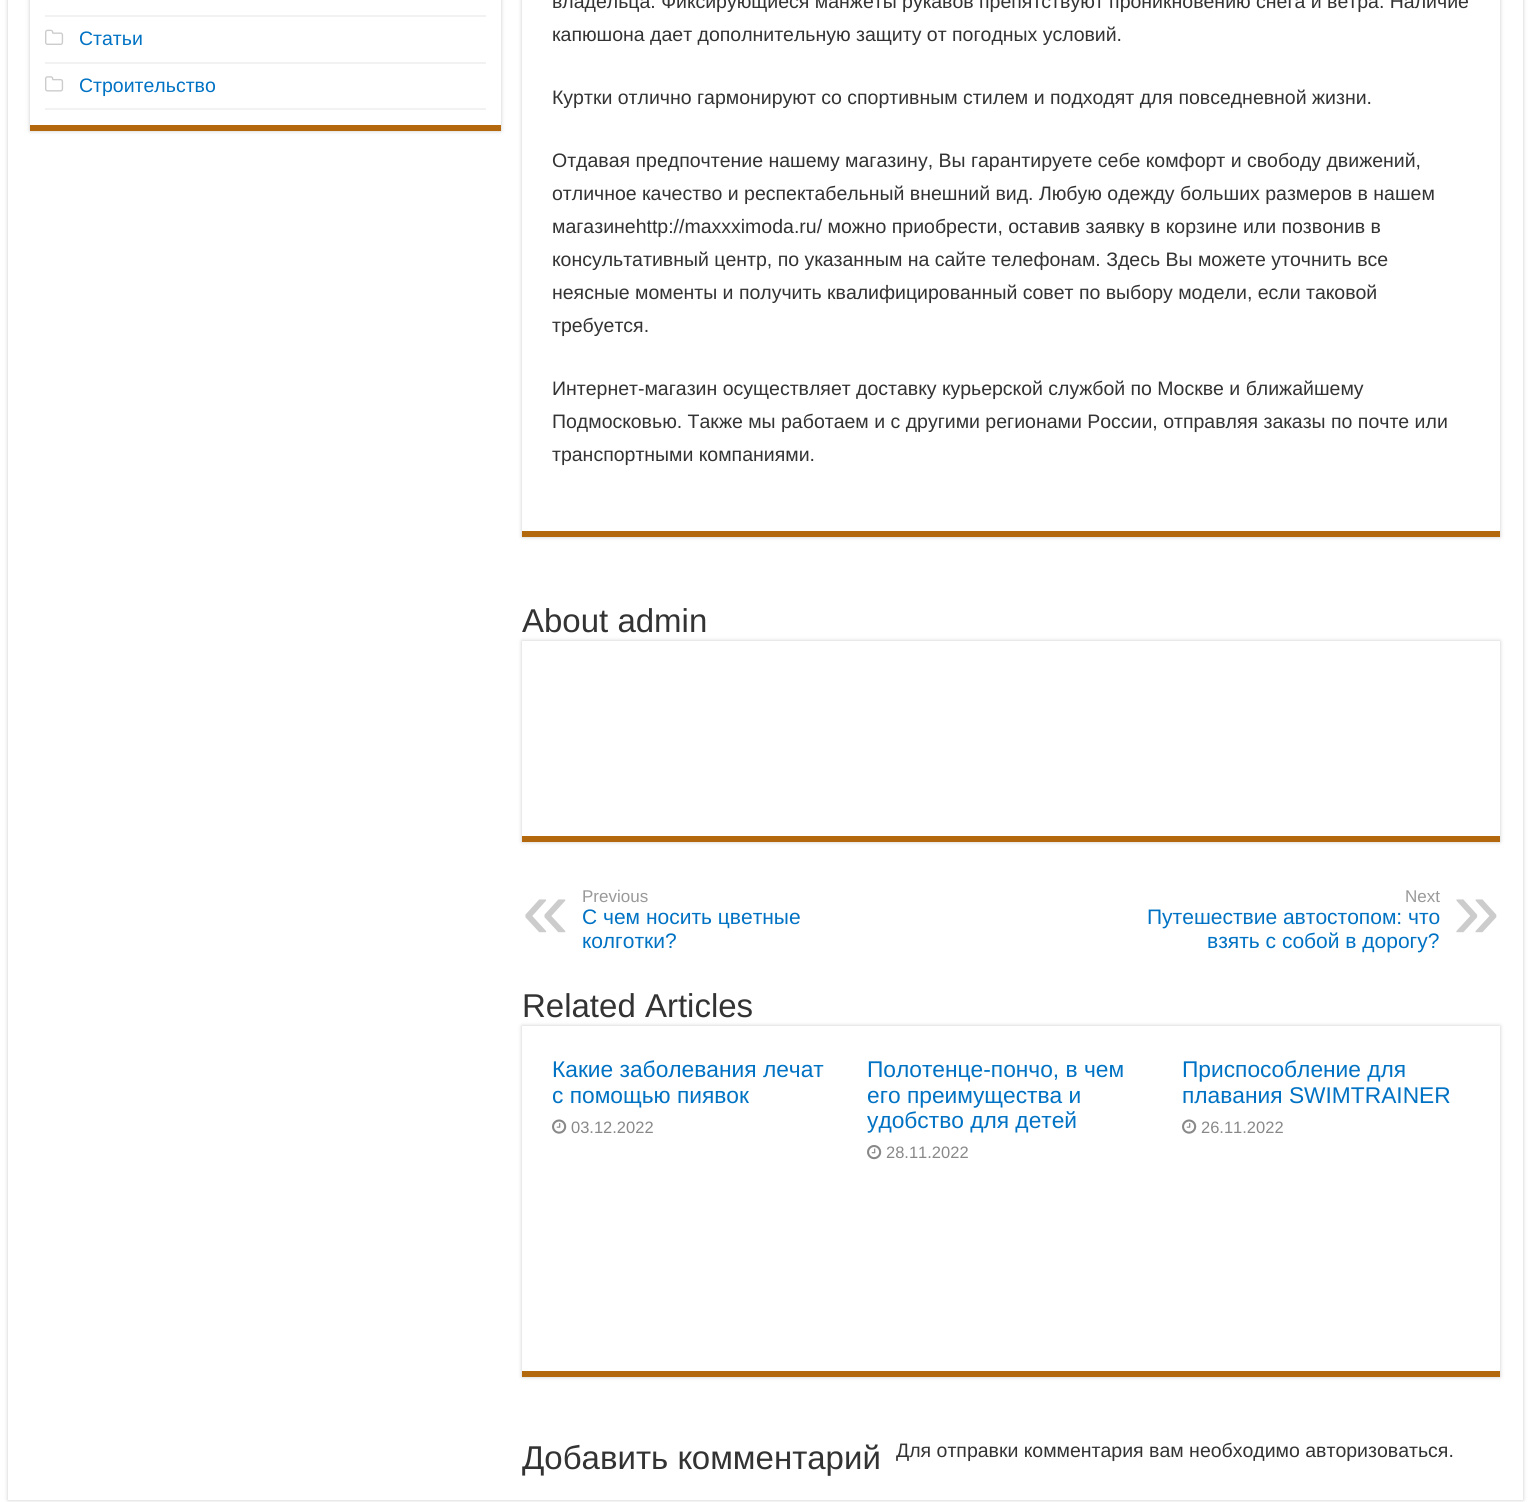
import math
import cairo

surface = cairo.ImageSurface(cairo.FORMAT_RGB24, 1530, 1502)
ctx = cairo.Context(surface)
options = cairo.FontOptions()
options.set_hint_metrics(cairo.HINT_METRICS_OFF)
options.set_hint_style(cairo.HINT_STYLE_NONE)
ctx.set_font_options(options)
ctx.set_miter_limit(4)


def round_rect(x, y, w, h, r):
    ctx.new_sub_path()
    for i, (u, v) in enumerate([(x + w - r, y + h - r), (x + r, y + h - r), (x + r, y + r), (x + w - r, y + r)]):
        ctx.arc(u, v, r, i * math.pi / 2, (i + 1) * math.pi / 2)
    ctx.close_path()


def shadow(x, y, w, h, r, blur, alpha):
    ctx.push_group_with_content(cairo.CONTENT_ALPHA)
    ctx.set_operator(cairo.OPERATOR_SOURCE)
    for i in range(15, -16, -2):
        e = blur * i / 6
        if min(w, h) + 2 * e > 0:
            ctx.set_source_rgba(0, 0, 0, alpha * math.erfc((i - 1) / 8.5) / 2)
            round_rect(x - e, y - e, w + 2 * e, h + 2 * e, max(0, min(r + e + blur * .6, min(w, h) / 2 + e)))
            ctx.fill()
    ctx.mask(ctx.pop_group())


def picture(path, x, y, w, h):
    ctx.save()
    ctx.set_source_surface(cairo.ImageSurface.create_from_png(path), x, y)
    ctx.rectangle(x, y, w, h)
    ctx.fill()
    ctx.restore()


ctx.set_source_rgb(1, 1, 1)
ctx.paint()
ctx.set_source_rgb(0.792, 0.792, 0.792)
shadow(8, -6, 1515, 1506, 0, 2, 1)
ctx.set_source_rgb(1, 1, 1)
ctx.rectangle(8, 0, 1515, 1500)
ctx.fill()
ctx.set_source_rgb(0.792, 0.792, 0.792)
shadow(30, -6, 471, 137, 0, 2, 1)
ctx.set_source_rgb(1, 1, 1)
ctx.rectangle(30, 0, 471, 125)
ctx.fill()
ctx.set_source_rgb(0.702, 0.408, 0.051)
ctx.rectangle(30, 125, 471, 6)
ctx.fill()
ctx.set_source_rgb(0.949, 0.949, 0.949)
ctx.rectangle(45, 15, 441, 2)
ctx.fill()
ctx.rectangle(45, 62, 441, 2)
ctx.fill()
picture("img1.png", 45, 29, 19, 16)
ctx.select_font_face("Liberation Sans")
ctx.set_font_size(19.5)
ctx.set_source_rgb(0, 0.447, 0.769)
ctx.move_to(79, 45)
ctx.show_text("Статьи")
ctx.set_source_rgb(0.949, 0.949, 0.949)
ctx.rectangle(45, 108, 441, 2)
ctx.fill()
picture("img2.png", 45, 76, 19, 16)
ctx.set_source_rgb(0, 0.447, 0.769)
ctx.move_to(79, 92)
ctx.show_text("Строительство")
ctx.save()
ctx.set_fill_rule(cairo.FILL_RULE_EVEN_ODD)
ctx.new_path()
ctx.move_to(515, 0)
ctx.line_to(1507, 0)
ctx.line_to(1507, 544)
ctx.line_to(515, 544)
ctx.close_path()
ctx.move_to(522, -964)
ctx.line_to(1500, -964)
ctx.line_to(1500, 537)
ctx.line_to(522, 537)
ctx.close_path()
ctx.clip()
ctx.set_source_rgb(0.792, 0.792, 0.792)
shadow(522, -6, 978, 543, 0, 2, 1)
ctx.restore()
ctx.set_source_rgb(0.702, 0.408, 0.051)
ctx.rectangle(522, 531, 978, 6)
ctx.fill()
ctx.set_source_rgb(0.2, 0.2, 0.2)
ctx.move_to(552, 8)
ctx.show_text("владельца. Фиксирующиеся манжеты рукавов препятствуют проникновению снега и ветра. Наличие")
ctx.move_to(552, 41)
ctx.show_text("капюшона дает дополнительную защиту от погодных условий.")
ctx.move_to(552, 104)
ctx.show_text("Куртки отлично гармонируют со спортивным стилем и подходят для повседневной жизни.")
ctx.move_to(552, 167)
ctx.show_text("Отдавая предпочтение нашему магазину, Вы гарантируете себе комфорт и свободу движений,")
ctx.move_to(552, 200)
ctx.show_text("отличное качество и респектабельный внешний вид. Любую одежду больших размеров в нашем")
ctx.move_to(552, 233)
ctx.show_text("магазинеhttp://maxxximoda.ru/ можно приобрести, оставив заявку в корзине или позвонив в")
ctx.move_to(552, 266)
ctx.show_text("консультативный центр, по указанным на сайте телефонам. Здесь Вы можете уточнить все")
ctx.move_to(552, 299)
ctx.show_text("неясные моменты и получить квалифицированный совет по выбору модели, если таковой")
ctx.move_to(552, 332)
ctx.show_text("требуется.")
ctx.move_to(552, 395)
ctx.show_text("Интернет-магазин осуществляет доставку курьерской службой по Москве и ближайшему")
ctx.move_to(552, 428)
ctx.show_text("Подмосковью. Также мы работаем и с другими регионами России, отправляя заказы по почте или")
ctx.move_to(552, 461)
ctx.show_text("транспортными компаниями.")
ctx.set_font_size(33)
ctx.move_to(522, 632)
ctx.show_text("About admin")
ctx.set_source_rgb(0.792, 0.792, 0.792)
shadow(522, 641, 978, 201, 0, 2, 1)
ctx.set_source_rgb(1, 1, 1)
ctx.rectangle(522, 641, 978, 195)
ctx.fill()
ctx.set_source_rgb(0.702, 0.408, 0.051)
ctx.rectangle(522, 836, 978, 6)
ctx.fill()
ctx.set_font_size(17)
ctx.set_source_rgb(0.6, 0.6, 0.6)
ctx.move_to(582, 902)
ctx.show_text("Previous")
ctx.set_font_size(84)
ctx.set_source_rgb(0.8, 0.8, 0.8)
ctx.move_to(522, 938)
ctx.show_text("«")
ctx.set_font_size(21)
ctx.set_source_rgb(0, 0.447, 0.769)
ctx.move_to(582, 924)
ctx.show_text("С чем носить цветные")
ctx.move_to(582, 948)
ctx.show_text("колготки?")
ctx.set_font_size(17)
ctx.set_source_rgb(0.6, 0.6, 0.6)
ctx.move_to(1405, 902)
ctx.show_text("Next")
ctx.set_font_size(21)
ctx.set_source_rgb(0, 0.447, 0.769)
ctx.move_to(1147, 924)
ctx.show_text("Путешествие автостопом: что")
ctx.set_font_size(84)
ctx.set_source_rgb(0.8, 0.8, 0.8)
ctx.move_to(1453, 938)
ctx.show_text("»")
ctx.set_font_size(21)
ctx.set_source_rgb(0, 0.447, 0.769)
ctx.move_to(1207, 948)
ctx.show_text("взять с собой в дорогу?")
ctx.set_font_size(33)
ctx.set_source_rgb(0.2, 0.2, 0.2)
ctx.move_to(522, 1017)
ctx.show_text("Related Articles")
ctx.save()
ctx.set_fill_rule(cairo.FILL_RULE_EVEN_ODD)
ctx.new_path()
ctx.move_to(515, 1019)
ctx.line_to(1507, 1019)
ctx.line_to(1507, 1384)
ctx.line_to(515, 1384)
ctx.close_path()
ctx.move_to(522, 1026)
ctx.line_to(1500, 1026)
ctx.line_to(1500, 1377)
ctx.line_to(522, 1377)
ctx.close_path()
ctx.clip()
ctx.set_source_rgb(0.792, 0.792, 0.792)
shadow(522, 1026, 978, 351, 0, 2, 1)
ctx.restore()
ctx.set_source_rgb(0.702, 0.408, 0.051)
ctx.rectangle(522, 1371, 978, 6)
ctx.fill()
ctx.set_font_size(22.75)
ctx.set_source_rgb(0, 0.447, 0.769)
ctx.move_to(552, 1077)
ctx.show_text("Какие заболевания лечат")
ctx.move_to(552, 1103)
ctx.show_text("с помощью пиявок")
picture("img3.png", 552, 1119, 15, 15)
ctx.set_font_size(16.5)
ctx.set_source_rgb(0.533, 0.533, 0.533)
ctx.move_to(571, 1133)
ctx.show_text("03.12.2022")
ctx.set_font_size(22.75)
ctx.set_source_rgb(0, 0.447, 0.769)
ctx.move_to(867, 1077)
ctx.show_text("Полотенце-пончо, в чем")
ctx.move_to(867, 1103)
ctx.show_text("его преимущества и")
ctx.move_to(867, 1128)
ctx.show_text("удобство для детей")
picture("img4.png", 867, 1145, 15, 15)
ctx.set_font_size(16.5)
ctx.set_source_rgb(0.533, 0.533, 0.533)
ctx.move_to(886, 1158)
ctx.show_text("28.11.2022")
ctx.set_font_size(22.75)
ctx.set_source_rgb(0, 0.447, 0.769)
ctx.move_to(1182, 1077)
ctx.show_text("Приспособление для")
ctx.move_to(1182, 1103)
ctx.show_text("плавания SWIMTRAINER")
picture("img3.png", 1182, 1119, 15, 15)
ctx.set_font_size(16.5)
ctx.set_source_rgb(0.533, 0.533, 0.533)
ctx.move_to(1201, 1133)
ctx.show_text("26.11.2022")
ctx.set_font_size(33)
ctx.set_source_rgb(0.2, 0.2, 0.2)
ctx.move_to(522, 1469)
ctx.show_text("Добавить комментарий")
ctx.set_font_size(19.5)
ctx.move_to(896, 1457)
ctx.show_text("Для отправки комментария вам необходимо авторизоваться.")
surface.write_to_png("page.png")
